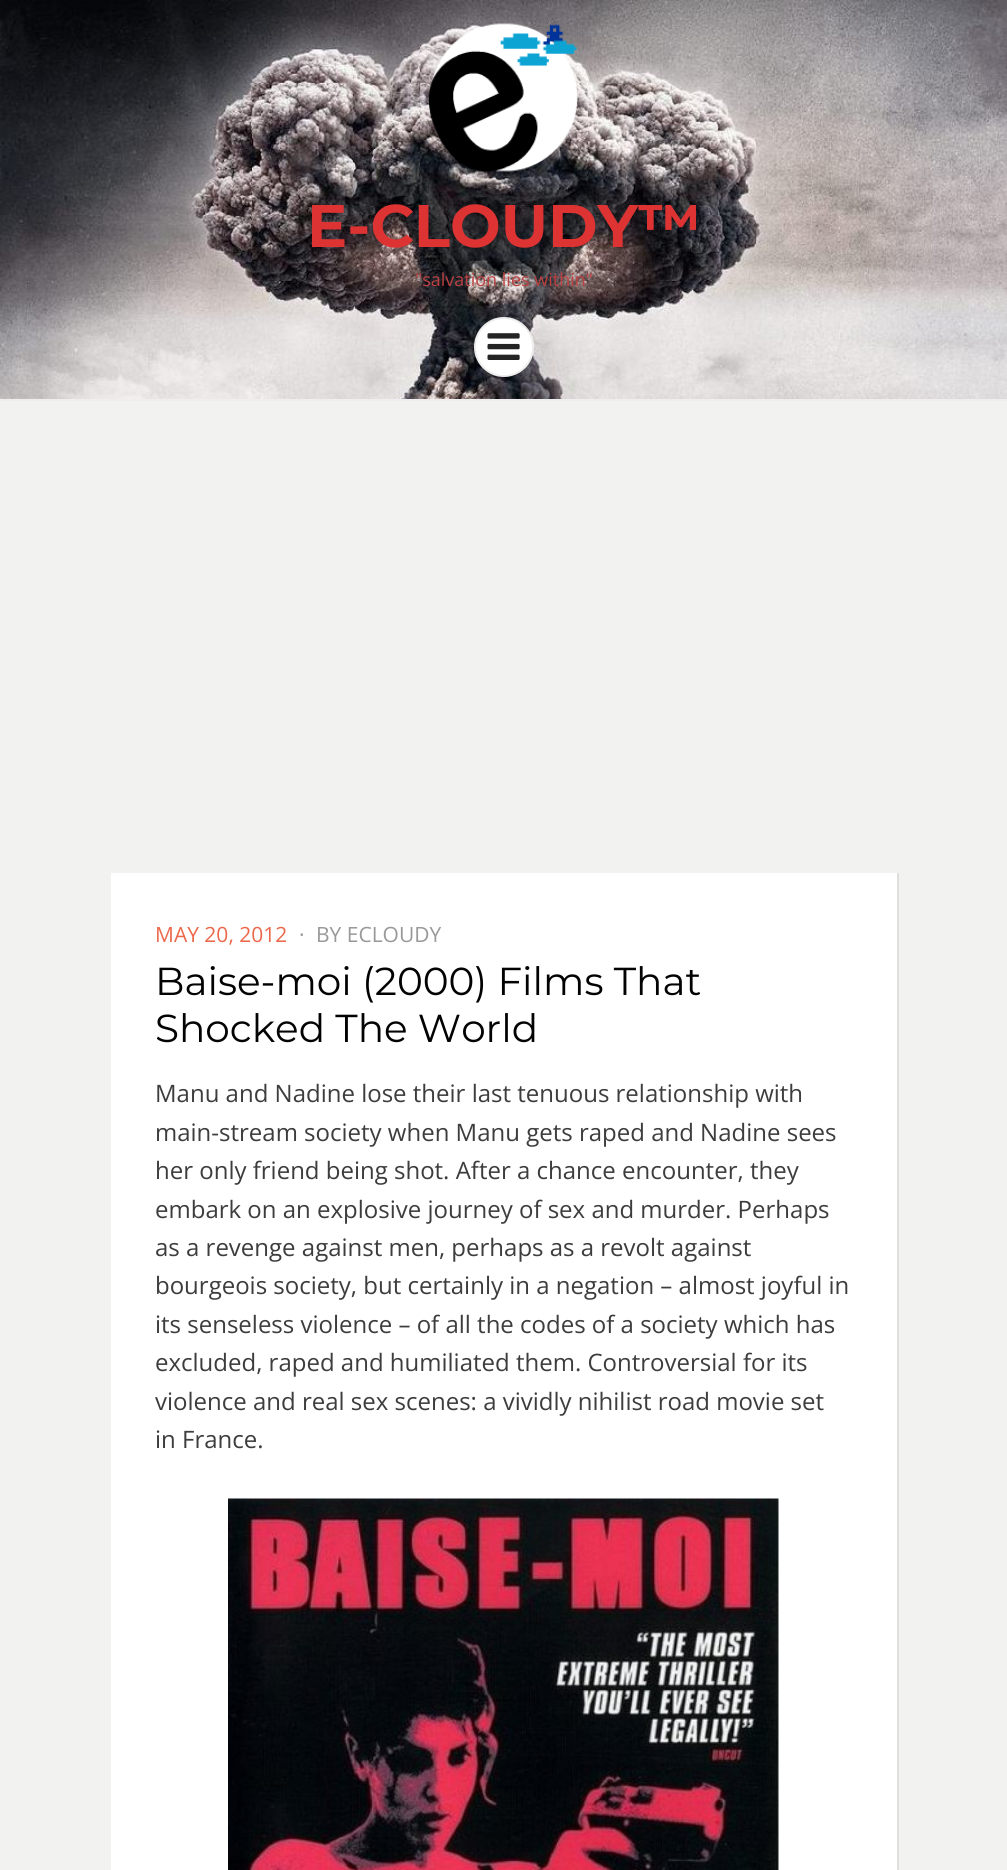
import math
import cairo

surface = cairo.ImageSurface(cairo.FORMAT_RGB24, 1007, 1870)
ctx = cairo.Context(surface)
options = cairo.FontOptions()
options.set_hint_metrics(cairo.HINT_METRICS_OFF)
options.set_hint_style(cairo.HINT_STYLE_NONE)
ctx.set_font_options(options)
ctx.set_miter_limit(4)


def picture(path, x, y, w, h):
    ctx.save()
    ctx.set_source_surface(cairo.ImageSurface.create_from_png(path), x, y)
    ctx.rectangle(x, y, w, h)
    ctx.fill()
    ctx.restore()


ctx.set_source_rgb(0.949, 0.949, 0.941)
ctx.paint()
picture("img1.png", 0, 0, 1007, 399)
ctx.set_source_rgb(0.933, 0.933, 0.933)
ctx.rectangle(0, 399, 1007, 2)
ctx.fill()
picture("img2.png", 429, 23, 149, 149)
ctx.select_font_face("Montserrat", cairo.FONT_SLANT_NORMAL, cairo.FONT_WEIGHT_BOLD)
ctx.set_font_size(60)
ctx.set_source_rgb(0.867, 0.2, 0.2)
ctx.move_to(307, 247)
ctx.show_text("E-CLOUDY™")
ctx.select_font_face("Open Sans")
ctx.set_font_size(18)
ctx.set_source_rgb(0.733, 0.255, 0.259)
ctx.move_to(415, 286)
ctx.show_text("\"salvation lies within\"")
ctx.set_source_rgb(1, 1, 1)
ctx.new_path()
ctx.arc(504, 347, 29, 0, 2 * math.pi)
ctx.fill_preserve()
ctx.set_source_rgb(0.933, 0.933, 0.933)
ctx.stroke()
picture("img3.png", 487, 333, 33, 27)
ctx.set_source_rgb(1, 1, 1)
ctx.rectangle(111, 873, 786, 997)
ctx.fill()
ctx.set_source_rgb(0.875, 0.875, 0.867)
ctx.rectangle(897, 873, 2, 997)
ctx.fill()
ctx.set_font_size(21)
ctx.set_source_rgb(0.922, 0.408, 0.294)
ctx.move_to(155, 942)
ctx.show_text("MAY 20, 2012")
ctx.set_source_rgb(0.6, 0.6, 0.6)
ctx.move_to(299, 942)
ctx.show_text("·")
ctx.move_to(316, 942)
ctx.show_text("BY ECLOUDY")
ctx.select_font_face("Montserrat")
ctx.set_font_size(39)
ctx.set_source_rgb(0.008, 0.008, 0.008)
ctx.move_to(155, 995)
ctx.show_text("Baise-moi (2000) Films That")
ctx.move_to(155, 1042)
ctx.show_text("Shocked The World")
ctx.select_font_face("Open Sans")
ctx.set_font_size(24)
ctx.set_source_rgb(0.239, 0.239, 0.239)
ctx.move_to(155, 1102)
ctx.show_text("Manu and Nadine lose their last tenuous relationship with")
ctx.move_to(155, 1141)
ctx.show_text("main-stream society when Manu gets raped and Nadine sees")
ctx.move_to(155, 1179)
ctx.show_text("her only friend being shot. After a chance encounter, they")
ctx.move_to(155, 1218)
ctx.show_text("embark on an explosive journey of sex and murder. Perhaps")
ctx.move_to(155, 1256)
ctx.show_text("as a revenge against men, perhaps as a revolt against")
ctx.move_to(155, 1294)
ctx.show_text("bourgeois society, but certainly in a negation – almost joyful in")
ctx.move_to(155, 1333)
ctx.show_text("its senseless violence – of all the codes of a society which has")
ctx.move_to(155, 1371)
ctx.show_text("excluded, raped and humiliated them. Controversial for its")
ctx.move_to(155, 1410)
ctx.show_text("violence and real sex scenes: a vividly nihilist road movie set")
ctx.move_to(155, 1448)
ctx.show_text("in France.")
picture("img4.png", 228, 1498, 551, 372)
surface.write_to_png("page.png")
